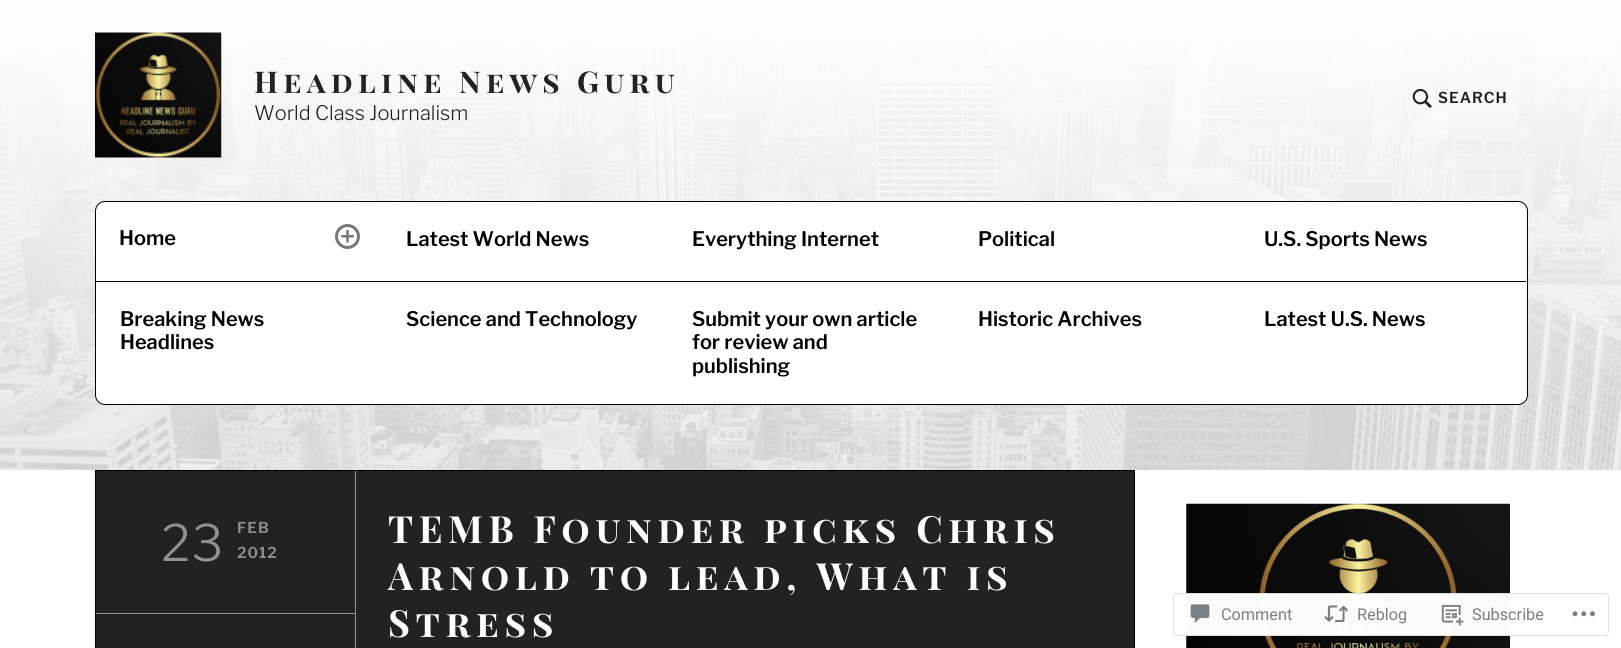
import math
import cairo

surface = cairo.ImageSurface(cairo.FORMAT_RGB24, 1621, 648)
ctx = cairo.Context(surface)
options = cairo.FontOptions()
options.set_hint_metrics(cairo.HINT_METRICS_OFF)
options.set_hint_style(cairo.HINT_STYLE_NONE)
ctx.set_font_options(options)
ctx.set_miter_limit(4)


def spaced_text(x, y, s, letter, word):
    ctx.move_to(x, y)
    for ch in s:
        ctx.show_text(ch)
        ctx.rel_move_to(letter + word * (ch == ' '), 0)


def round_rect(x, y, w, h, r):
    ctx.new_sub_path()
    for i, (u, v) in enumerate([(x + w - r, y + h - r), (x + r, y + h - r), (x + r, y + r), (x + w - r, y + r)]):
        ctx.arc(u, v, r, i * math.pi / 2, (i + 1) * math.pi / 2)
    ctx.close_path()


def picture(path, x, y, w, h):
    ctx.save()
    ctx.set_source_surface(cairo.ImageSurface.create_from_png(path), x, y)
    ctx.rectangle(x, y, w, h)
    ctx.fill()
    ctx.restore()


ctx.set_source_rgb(1, 1, 1)
ctx.paint()
picture("img1.png", 0, 0, 1621, 470)
picture("img2.png", 95, 32, 127, 126)
ctx.select_font_face("Playfair Display SC", cairo.FONT_SLANT_NORMAL, cairo.FONT_WEIGHT_BOLD)
ctx.set_font_size(30)
ctx.set_source_rgb(0.133, 0.133, 0.133)
spaced_text(254, 93, "Headline News Guru", 5.25, 0)
ctx.select_font_face("Libre Franklin Light")
ctx.set_font_size(20)
ctx.move_to(254, 120)
ctx.show_text("World Class Journalism")
picture("img3.png", 1412, 88, 20, 20)
ctx.select_font_face("Libre Franklin SemiBold")
ctx.set_font_size(15)
spaced_text(1438, 103, "SEARCH", 1, 0)
ctx.set_source_rgb(1, 1, 1)
round_rect(95.5, 201.5, 1432, 203, 9.5)
ctx.fill_preserve()
ctx.set_source_rgb(0, 0, 0)
ctx.set_line_width(1)
ctx.stroke()
ctx.set_font_size(20)
ctx.move_to(119, 245)
ctx.show_text("Home")
ctx.new_path()
ctx.arc(347.5, 236.5, 11, 0, 2 * math.pi)
ctx.set_source_rgb(0.467, 0.467, 0.467)
ctx.set_line_width(3)
ctx.stroke()
picture("img4.png", 341, 230, 13, 13)
ctx.set_source_rgb(0, 0, 0)
ctx.rectangle(95, 281, 1431, 1)
ctx.fill()
ctx.move_to(406, 246)
ctx.show_text("Latest World News")
ctx.move_to(692, 246)
ctx.show_text("Everything Internet")
ctx.move_to(978, 246)
ctx.show_text("Political")
ctx.move_to(1264, 246)
ctx.show_text("U.S. Sports News")
ctx.move_to(120, 326)
ctx.show_text("Breaking News")
ctx.move_to(120, 349)
ctx.show_text("Headlines")
ctx.move_to(406, 326)
ctx.show_text("Science and Technology")
ctx.move_to(692, 326)
ctx.show_text("Submit your own article")
ctx.move_to(692, 349)
ctx.show_text("for review and")
ctx.move_to(692, 373)
ctx.show_text("publishing")
ctx.move_to(978, 326)
ctx.show_text("Historic Archives")
ctx.move_to(1264, 326)
ctx.show_text("Latest U.S. News")
ctx.rectangle(95.5, 470.5, 1039, 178)
ctx.set_line_width(1)
ctx.stroke()
ctx.set_source_rgb(0.133, 0.133, 0.133)
ctx.rectangle(96, 471, 1038, 177)
ctx.fill()
ctx.select_font_face("Libre Franklin Light")
ctx.set_font_size(50)
ctx.set_source_rgb(0.569, 0.569, 0.569)
spaced_text(161, 561, "23", 1, 0)
ctx.select_font_face("Libre Franklin SemiBold")
ctx.set_font_size(15)
spaced_text(237, 533, "FEB", 1, 0)
spaced_text(237, 558, "2012", 1, 0)
ctx.rectangle(355, 471, 1, 177)
ctx.fill()
ctx.rectangle(96, 613, 259, 1)
ctx.fill()
ctx.select_font_face("Playfair Display SC", cairo.FONT_SLANT_NORMAL, cairo.FONT_WEIGHT_BOLD)
ctx.set_font_size(37.5)
ctx.set_source_rgb(1, 1, 1)
spaced_text(388, 543, "TEMB Founder picks Chris", 5.6, 0)
spaced_text(388, 590, "Arnold to lead, What is", 5.6, 0)
spaced_text(388, 637, "Stress", 5.6, 0)
picture("img5.png", 1186, 503, 324, 145)
ctx.set_source_rgba(1, 1, 1, 0.98)
round_rect(1173, 593, 436, 43, 4)
ctx.fill()
round_rect(1173.5, 593.5, 435, 42, 3.5)
ctx.set_source_rgba(0.863, 0.863, 0.871, 0.98)
ctx.stroke()
picture("img6.png", 1190, 604, 20, 19)
ctx.select_font_face("Roboto")
ctx.set_font_size(16.25)
ctx.set_source_rgb(0.482, 0.498, 0.518)
ctx.move_to(1221, 620)
ctx.show_text("Comment")
picture("img7.png", 1324, 605, 25, 18)
ctx.move_to(1357, 620)
ctx.show_text("Reblog")
picture("img8.png", 1441, 605, 23, 21)
ctx.move_to(1472, 620)
ctx.show_text("Subscribe")
picture("img9.png", 1572, 611, 23, 6)
surface.write_to_png("page.png")
